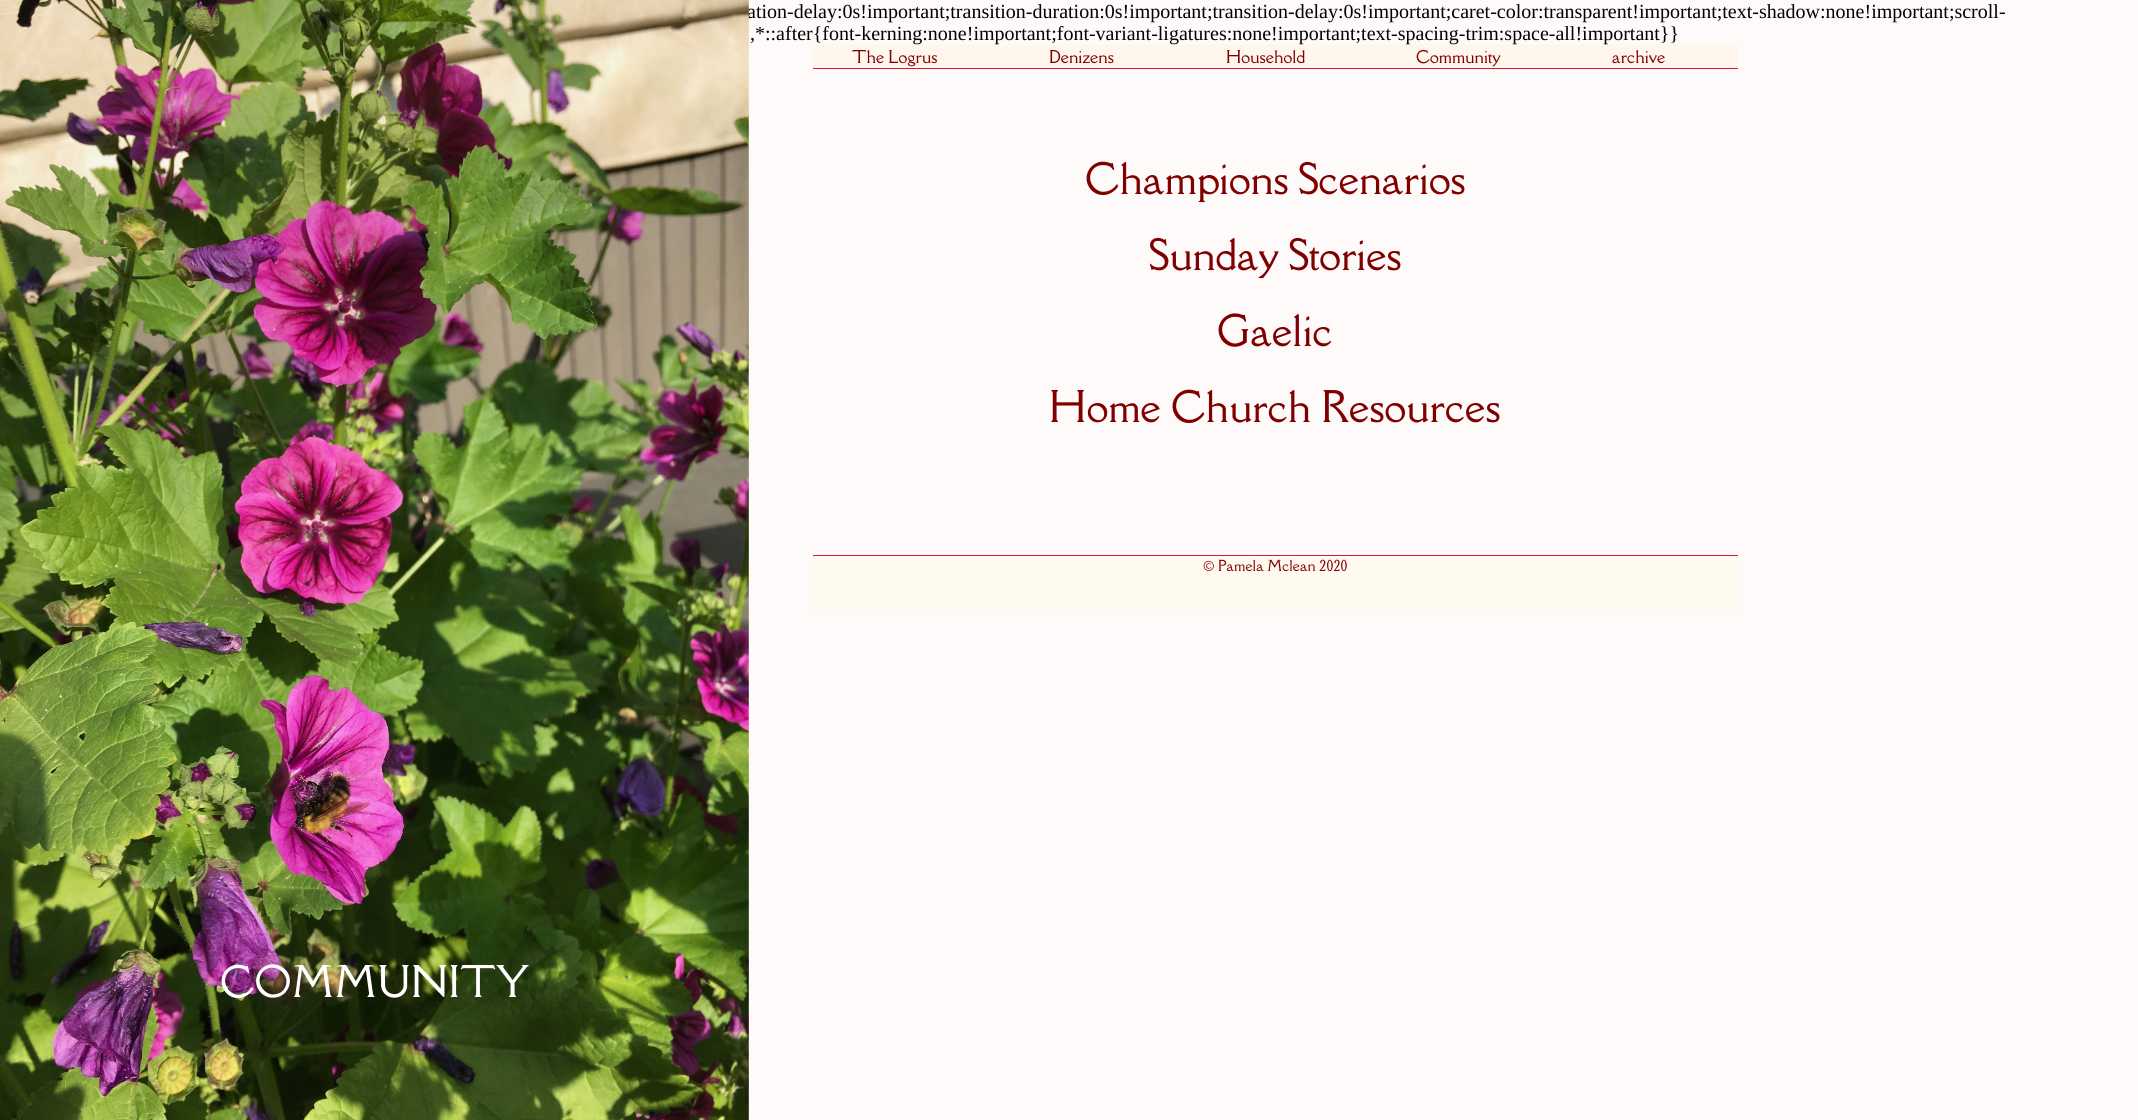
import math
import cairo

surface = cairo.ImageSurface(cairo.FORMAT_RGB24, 2138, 1120)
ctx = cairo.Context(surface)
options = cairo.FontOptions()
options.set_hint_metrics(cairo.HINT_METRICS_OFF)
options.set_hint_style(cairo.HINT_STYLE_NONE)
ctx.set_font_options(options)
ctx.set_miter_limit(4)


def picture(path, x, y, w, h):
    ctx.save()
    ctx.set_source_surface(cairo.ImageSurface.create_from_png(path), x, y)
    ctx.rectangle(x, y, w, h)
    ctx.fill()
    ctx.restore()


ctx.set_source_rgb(1, 0.98, 0.98)
ctx.paint()
ctx.select_font_face("Liberation Serif")
ctx.set_font_size(20)
ctx.set_source_rgb(0, 0, 0)
ctx.move_to(747, 18)
ctx.show_text("ation-delay:0s!important;transition-duration:0s!important;transition-delay:0s!important;caret-color:transparent!important;text-shadow:none!important;scroll-")
ctx.move_to(750, 40)
ctx.show_text(",*::after{font-kerning:none!important;font-variant-ligatures:none!important;text-spacing-trim:space-all!important}}")
ctx.set_source_rgb(0.863, 0.078, 0.235)
ctx.rectangle(813, 68, 925, 1)
ctx.fill()
ctx.set_source_rgb(1, 0.961, 0.933)
ctx.rectangle(813, 45, 925, 23)
ctx.fill()
ctx.select_font_face("Della Respira Medium")
ctx.set_font_size(16.25)
ctx.set_source_rgb(0.502, 0, 0)
ctx.move_to(852, 63)
ctx.show_text("The Logrus")
ctx.move_to(1049, 63)
ctx.show_text("Denizens")
ctx.move_to(1226, 63)
ctx.show_text("Household")
ctx.move_to(1416, 63)
ctx.show_text("Community")
ctx.move_to(1612, 63)
ctx.show_text("archive")
ctx.set_font_size(40)
ctx.move_to(1085, 194)
ctx.show_text("Champions Scenarios")
ctx.move_to(1149, 270)
ctx.show_text("Sunday Stories")
ctx.move_to(1217, 346)
ctx.show_text("Gaelic")
ctx.move_to(1049, 422)
ctx.show_text("Home Church Resources")
ctx.set_source_rgb(1, 0.98, 0.941)
ctx.rectangle(813, 556, 925, 54)
ctx.fill()
ctx.set_source_rgb(0.863, 0.078, 0.235)
ctx.rectangle(813, 555, 925, 1)
ctx.fill()
ctx.set_font_size(14)
ctx.set_source_rgb(0.502, 0, 0)
ctx.move_to(1203, 571)
ctx.show_text("© Pamela Mclean 2020")
picture("img1.png", 0, 0, 749, 1120)
ctx.set_font_size(40)
ctx.set_source_rgb(1, 1, 1)
ctx.move_to(220, 997)
ctx.show_text("COMMUNITY")
surface.write_to_png("page.png")
